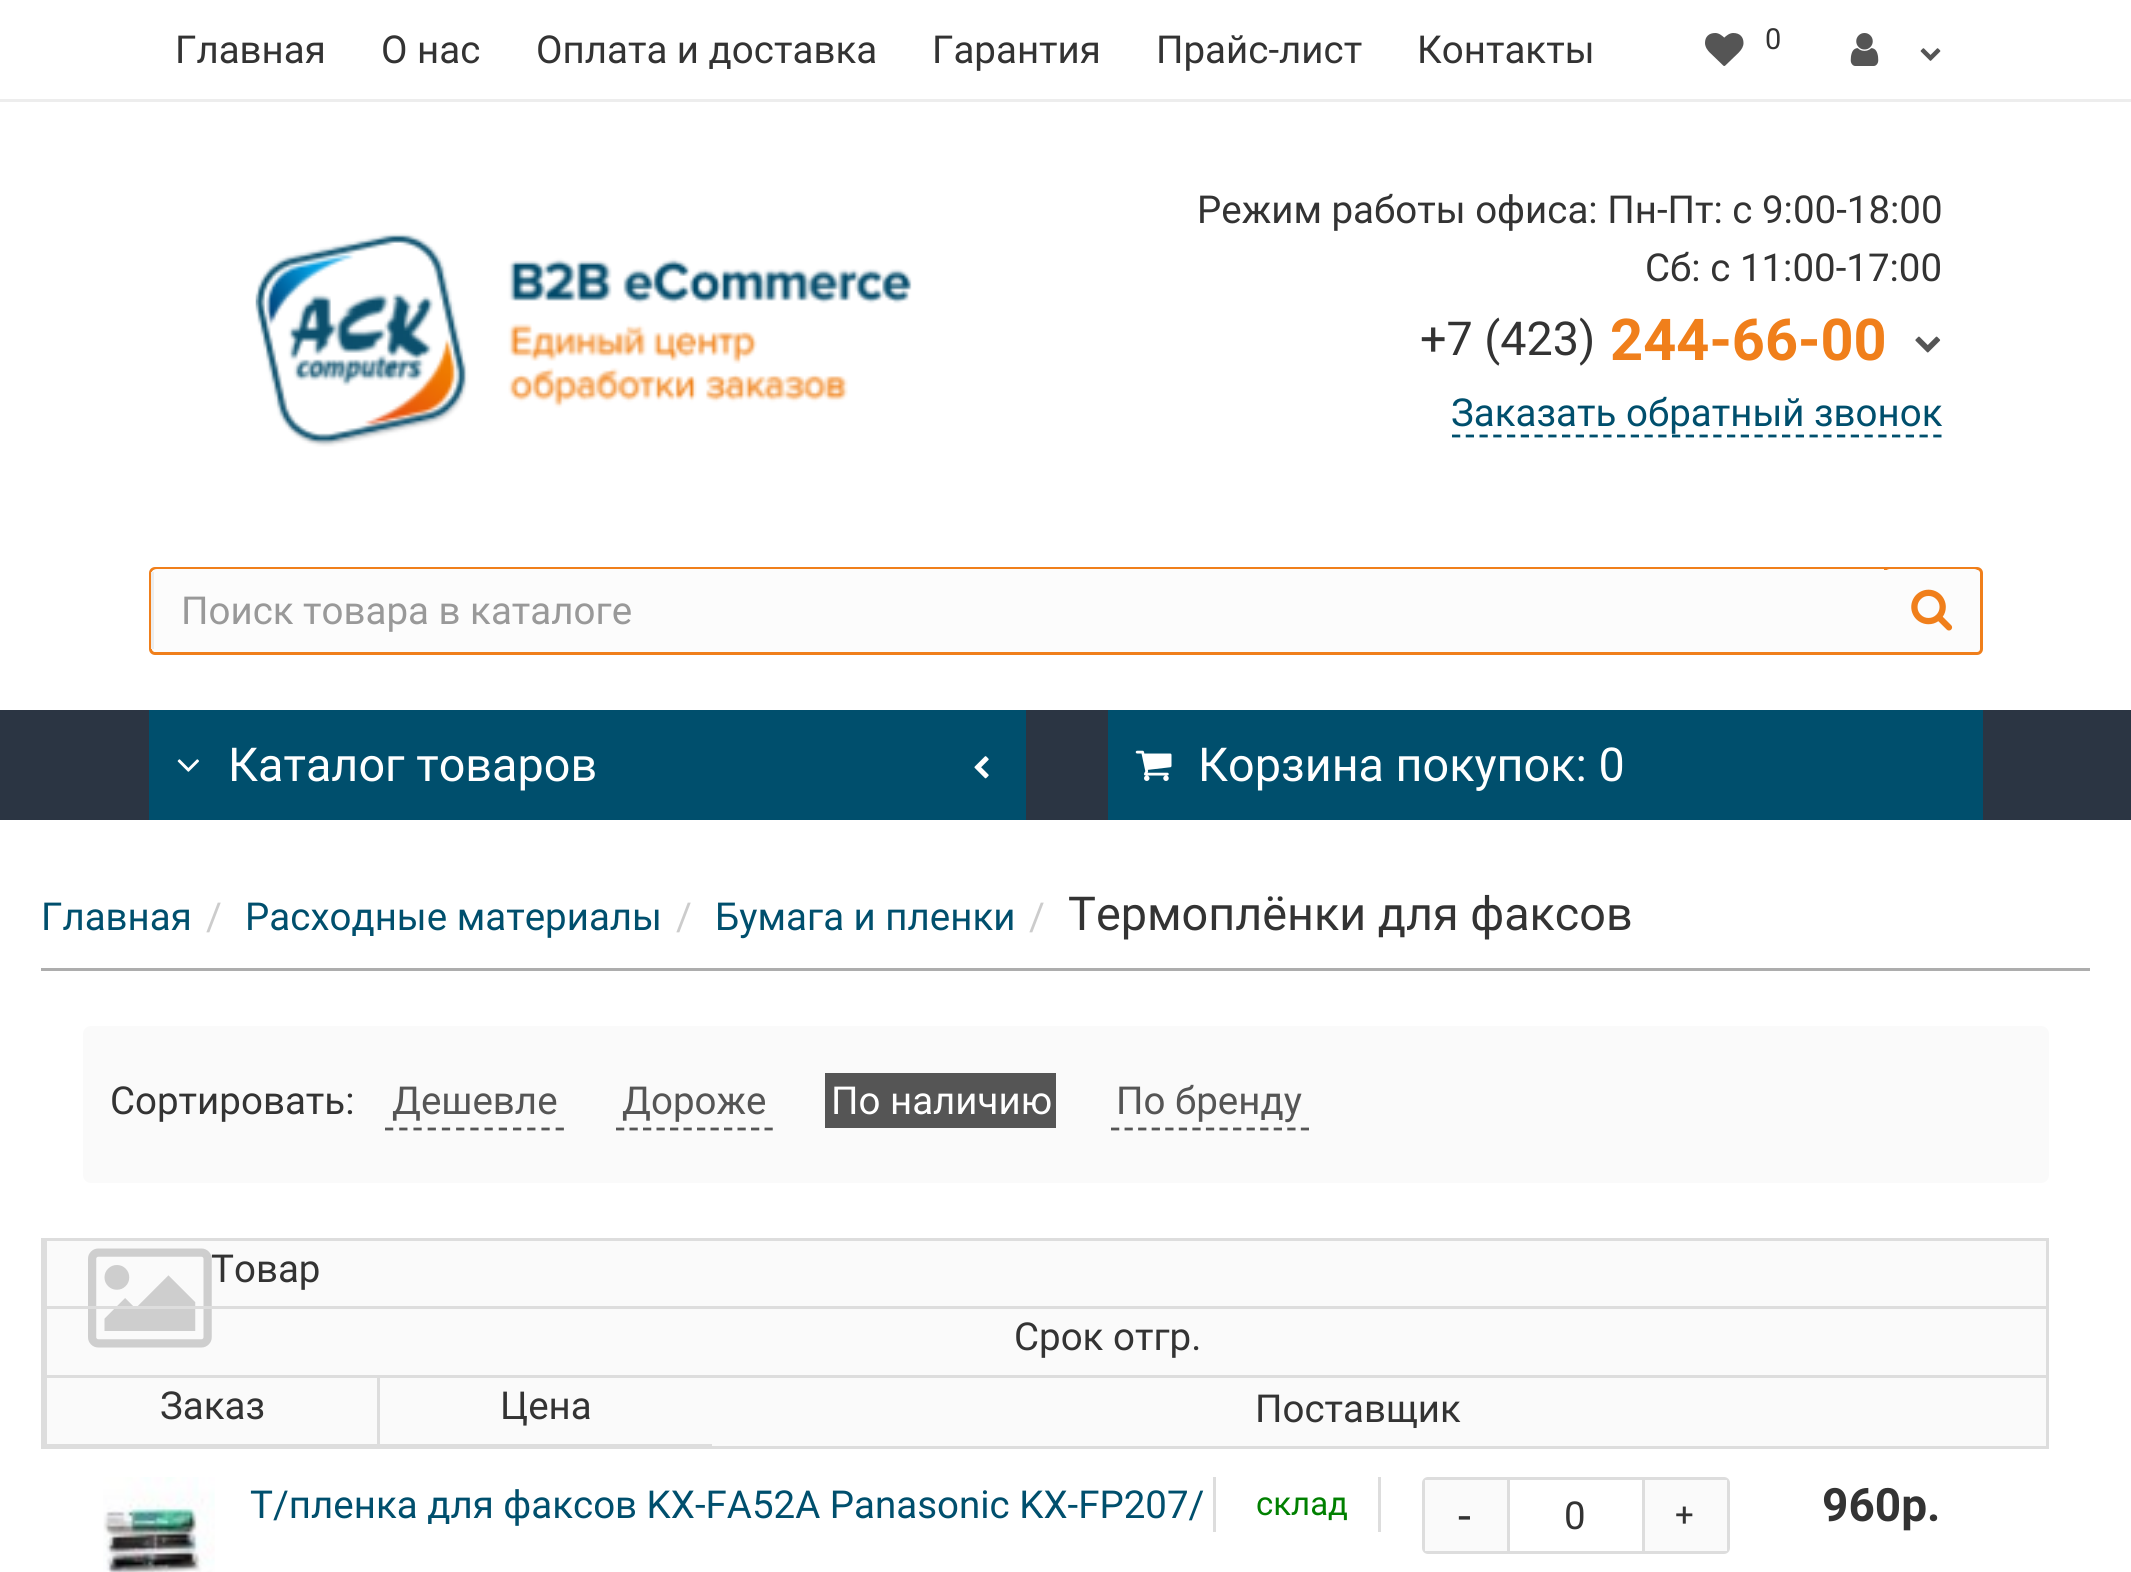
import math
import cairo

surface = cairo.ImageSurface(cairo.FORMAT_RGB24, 2131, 1572)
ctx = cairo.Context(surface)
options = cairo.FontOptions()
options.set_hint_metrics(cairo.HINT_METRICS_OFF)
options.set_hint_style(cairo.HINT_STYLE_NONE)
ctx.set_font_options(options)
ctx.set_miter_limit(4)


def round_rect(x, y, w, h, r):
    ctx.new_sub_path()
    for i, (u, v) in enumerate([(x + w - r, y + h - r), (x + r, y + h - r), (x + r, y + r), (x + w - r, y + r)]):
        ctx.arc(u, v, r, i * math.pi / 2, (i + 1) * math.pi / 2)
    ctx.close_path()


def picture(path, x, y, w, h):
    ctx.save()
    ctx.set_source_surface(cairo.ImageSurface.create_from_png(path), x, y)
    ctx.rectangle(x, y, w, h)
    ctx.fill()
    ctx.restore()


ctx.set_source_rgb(1, 1, 1)
ctx.paint()
ctx.set_source_rgb(0.929, 0.929, 0.929)
ctx.rectangle(0, 99, 2131, 3)
ctx.fill()
ctx.select_font_face("Roboto")
ctx.set_font_size(38.5)
ctx.set_source_rgb(0.2, 0.2, 0.2)
ctx.move_to(175, 63)
ctx.show_text("Главная")
ctx.move_to(381, 63)
ctx.show_text("О нас")
ctx.move_to(536, 63)
ctx.show_text("Оплата и доставка")
ctx.move_to(932, 63)
ctx.show_text("Гарантия")
ctx.move_to(1156, 63)
ctx.show_text("Прайс-лист")
ctx.move_to(1417, 63)
ctx.show_text("Контакты")
picture("img1.png", 1705, 33, 39, 33)
ctx.set_font_size(29)
ctx.move_to(1765, 49)
ctx.show_text("0")
picture("img2.png", 1850, 33, 29, 33)
picture("img3.png", 1920, 48, 21, 13)
picture("img4.png", 255, 233, 657, 214)
ctx.set_font_size(38.5)
ctx.move_to(1197, 223)
ctx.show_text("Режим работы офиса: Пн-Пт: c 9:00-18:00")
ctx.move_to(1645, 281)
ctx.show_text("Cб: c 11:00-17:00")
ctx.set_font_size(46.75)
ctx.move_to(1420, 355)
ctx.show_text("+7 (423)")
ctx.select_font_face("Roboto", cairo.FONT_SLANT_NORMAL, cairo.FONT_WEIGHT_BOLD)
ctx.set_font_size(57.75)
ctx.set_source_rgb(0.941, 0.498, 0.106)
ctx.move_to(1610, 360)
ctx.show_text("244-66-00")
picture("img5.png", 1915, 336, 26, 17)
ctx.select_font_face("Roboto")
ctx.set_font_size(38.5)
ctx.set_source_rgb(0, 0.31, 0.427)
ctx.move_to(1451, 426)
ctx.show_text("Заказать обратный звонок")
ctx.new_path()
ctx.move_to(1452, 436)
ctx.line_to(1941.5, 436)
ctx.set_line_width(2.8)
ctx.set_dash([8.25, 5.5])
ctx.stroke()
ctx.set_source_rgb(0.988, 0.988, 0.988)
round_rect(150.5, 568.5, 1831, 85, 4.5)
ctx.fill_preserve()
ctx.set_source_rgb(0.941, 0.498, 0.106)
ctx.set_line_width(3)
ctx.set_dash([])
ctx.stroke()
ctx.set_source_rgb(0.988, 0.988, 0.988)
ctx.new_path()
ctx.move_to(157, 569)
ctx.line_to(1884, 569)
ctx.line_to(1884, 652)
ctx.line_to(157, 652)
ctx.curve_to(153.5, 652, 151, 649.5, 151, 646)
ctx.line_to(151, 575)
ctx.curve_to(151, 571.5, 153.5, 569, 157, 569)
ctx.close_path()
ctx.fill()
ctx.set_source_rgb(0.929, 0.929, 0.929)
ctx.rectangle(151, 572, 3, 77)
ctx.fill()
ctx.set_source_rgb(0.6, 0.6, 0.6)
ctx.move_to(181, 624)
ctx.show_text("Поиск товара в каталоге")
ctx.set_source_rgb(0.988, 0.988, 0.988)
round_rect(1884, 569, 96, 83, 6)
ctx.fill()
picture("img6.png", 1911, 589, 42, 42)
ctx.set_source_rgb(0.169, 0.208, 0.263)
ctx.rectangle(0, 710, 2131, 110)
ctx.fill()
ctx.set_source_rgb(0, 0.31, 0.427)
ctx.rectangle(149, 710, 877, 110)
ctx.fill()
picture("img7.png", 177, 759, 22, 13)
ctx.set_font_size(46.75)
ctx.set_source_rgb(1, 1, 1)
ctx.move_to(228, 781)
ctx.show_text("Каталог товаров")
picture("img8.png", 974, 756, 15, 23)
ctx.set_source_rgb(0, 0.31, 0.427)
ctx.rectangle(1108, 710, 875, 110)
ctx.fill()
picture("img9.png", 1135, 750, 37, 31)
ctx.set_source_rgb(1, 1, 1)
ctx.move_to(1198, 781)
ctx.show_text("Корзина покупок: 0")
ctx.set_source_rgb(0.678, 0.678, 0.678)
ctx.rectangle(41, 968, 2049, 3)
ctx.fill()
ctx.set_font_size(38.5)
ctx.set_source_rgb(0, 0.31, 0.427)
ctx.move_to(41, 930)
ctx.show_text("Главная")
ctx.set_source_rgb(0.8, 0.8, 0.8)
ctx.move_to(206, 930)
ctx.show_text("/")
ctx.set_source_rgb(0, 0.31, 0.427)
ctx.move_to(245, 930)
ctx.show_text("Расходные материалы")
ctx.set_source_rgb(0.8, 0.8, 0.8)
ctx.move_to(676, 930)
ctx.show_text("/")
ctx.set_source_rgb(0, 0.31, 0.427)
ctx.move_to(715, 930)
ctx.show_text("Бумага и пленки")
ctx.set_source_rgb(0.8, 0.8, 0.8)
ctx.move_to(1029, 930)
ctx.show_text("/")
ctx.set_font_size(46.75)
ctx.set_source_rgb(0.2, 0.2, 0.2)
ctx.move_to(1068, 930)
ctx.show_text("Термоплёнки для факсов")
ctx.set_source_rgb(0.98, 0.98, 0.98)
round_rect(83, 1026, 1966, 157, 8)
ctx.fill()
ctx.set_font_size(38.5)
ctx.set_source_rgb(0.2, 0.2, 0.2)
ctx.move_to(110, 1114)
ctx.show_text("Сортировать:")
ctx.set_source_rgb(0.333, 0.333, 0.333)
ctx.move_to(392, 1114)
ctx.show_text("Дешевле")
ctx.new_path()
ctx.move_to(385, 1129)
ctx.line_to(564, 1129)
ctx.set_line_width(2.8)
ctx.set_dash([8.25, 5.97])
ctx.stroke()
ctx.move_to(622, 1114)
ctx.show_text("Дороже")
ctx.new_path()
ctx.move_to(616, 1129)
ctx.line_to(773, 1129)
ctx.set_dash([8.25, 5.25])
ctx.stroke()
ctx.rectangle(825, 1073, 231, 55)
ctx.fill()
ctx.set_source_rgb(1, 1, 1)
ctx.move_to(831, 1114)
ctx.show_text("По наличию")
ctx.set_source_rgb(0.333, 0.333, 0.333)
ctx.move_to(1116, 1114)
ctx.show_text("По бренду")
ctx.new_path()
ctx.move_to(1111, 1129)
ctx.line_to(1309, 1129)
ctx.set_dash([8.25, 5.31])
ctx.stroke()
ctx.set_source_rgb(0.98, 0.98, 0.98)
ctx.rectangle(47, 1241, 1999, 205)
ctx.fill()
ctx.rectangle(42.5, 1239.5, 2005, 208)
ctx.set_source_rgb(0.867, 0.867, 0.867)
ctx.set_line_width(3)
ctx.set_dash([])
ctx.stroke()
ctx.rectangle(44, 1240, 3, 138)
ctx.fill()
picture("img10.png", 88, 1248, 124, 100)
ctx.rectangle(44, 1306, 2002, 3)
ctx.fill()
ctx.set_source_rgb(0.2, 0.2, 0.2)
ctx.move_to(211, 1282)
ctx.show_text("Товар")
ctx.set_source_rgb(0.867, 0.867, 0.867)
ctx.rectangle(44, 1375, 2002, 3)
ctx.fill()
ctx.set_source_rgb(0.2, 0.2, 0.2)
ctx.move_to(1014, 1350)
ctx.show_text("Срок отгр.")
ctx.set_source_rgb(0.867, 0.867, 0.867)
ctx.rectangle(44, 1444, 668, 2)
ctx.fill()
ctx.rectangle(44, 1378, 3, 69)
ctx.fill()
ctx.set_source_rgb(0.2, 0.2, 0.2)
ctx.move_to(160, 1419)
ctx.show_text("Заказ")
ctx.set_source_rgb(0.867, 0.867, 0.867)
ctx.rectangle(377, 1378, 3, 69)
ctx.fill()
ctx.set_source_rgb(0.2, 0.2, 0.2)
ctx.move_to(500, 1419)
ctx.show_text("Цена")
ctx.move_to(1255, 1422)
ctx.show_text("Поставщик")
picture("img11.png", 103, 1477, 112, 95)
ctx.set_source_rgb(0, 0.31, 0.427)
ctx.move_to(250, 1518)
ctx.show_text("Т/пленка для факсов KX-FA52A Panasonic KX-FP207/")
ctx.set_source_rgb(0.867, 0.867, 0.867)
ctx.rectangle(1378, 1477, 3, 55)
ctx.fill()
ctx.rectangle(1213, 1477, 3, 55)
ctx.fill()
ctx.set_font_size(33)
ctx.set_source_rgb(0, 0.502, 0)
ctx.move_to(1256, 1515)
ctx.show_text("склад")
round_rect(1423.5, 1478.5, 305, 74, 4.5)
ctx.set_source_rgb(0.867, 0.867, 0.867)
ctx.stroke()
ctx.rectangle(1642, 1480, 3, 71)
ctx.fill()
ctx.rectangle(1507, 1480, 3, 71)
ctx.fill()
ctx.set_font_size(38.5)
ctx.set_source_rgb(0.2, 0.2, 0.2)
ctx.move_to(1564, 1529)
ctx.show_text("0")
ctx.set_source_rgb(0.98, 0.98, 0.98)
ctx.rectangle(1425, 1480, 82, 71)
ctx.fill()
ctx.set_font_size(46.75)
ctx.set_source_rgb(0.2, 0.2, 0.2)
ctx.move_to(1458, 1532)
ctx.show_text("-")
ctx.set_source_rgb(0.98, 0.98, 0.98)
ctx.rectangle(1645, 1480, 82, 71)
ctx.fill()
ctx.set_font_size(33)
ctx.set_source_rgb(0.2, 0.2, 0.2)
ctx.move_to(1675, 1526)
ctx.show_text("+")
ctx.select_font_face("Roboto", cairo.FONT_SLANT_NORMAL, cairo.FONT_WEIGHT_BOLD)
ctx.set_font_size(46)
ctx.move_to(1822, 1521)
ctx.show_text("960р.")
surface.write_to_png("page.png")
